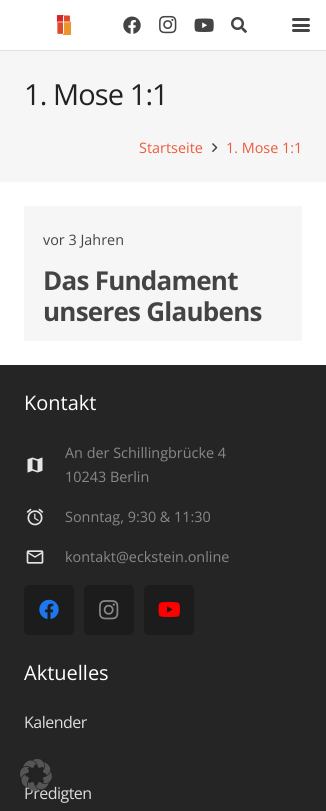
import math
import cairo

surface = cairo.ImageSurface(cairo.FORMAT_RGB24, 326, 811)
ctx = cairo.Context(surface)
options = cairo.FontOptions()
options.set_hint_metrics(cairo.HINT_METRICS_OFF)
options.set_hint_style(cairo.HINT_STYLE_NONE)
ctx.set_font_options(options)
ctx.set_miter_limit(4)


def spaced_text(x, y, s, letter, word):
    ctx.move_to(x, y)
    for ch in s:
        ctx.show_text(ch)
        ctx.rel_move_to(letter + word * (ch == ' '), 0)


def round_rect(x, y, w, h, r):
    ctx.new_sub_path()
    for i, (u, v) in enumerate([(x + w - r, y + h - r), (x + r, y + h - r), (x + r, y + r), (x + w - r, y + r)]):
        ctx.arc(u, v, r, i * math.pi / 2, (i + 1) * math.pi / 2)
    ctx.close_path()


def picture(path, x, y, w, h):
    ctx.save()
    ctx.set_source_surface(cairo.ImageSurface.create_from_png(path), x, y)
    ctx.rectangle(x, y, w, h)
    ctx.fill()
    ctx.restore()


ctx.set_source_rgb(1, 1, 1)
ctx.paint()
ctx.set_source_rgb(0.882, 0.882, 0.882)
ctx.rectangle(0, 50, 326, 1)
ctx.fill()
picture("img1.png", 56, 15, 16, 20)
picture("img2.png", 123, 16, 18, 18)
picture("img3.png", 159, 15, 18, 19)
picture("img4.png", 194, 18, 20, 14)
picture("img5.png", 231, 17, 16, 16)
ctx.set_source_rgb(0.267, 0.267, 0.267)
round_rect(292, 24, 18, 3, 1.5)
ctx.fill()
round_rect(292, 18, 18, 3, 1.5)
ctx.fill()
round_rect(292, 29, 18, 3, 1.5)
ctx.fill()
ctx.set_source_rgb(0.961, 0.961, 0.961)
ctx.rectangle(0, 51, 326, 131)
ctx.fill()
ctx.select_font_face("Open Sans")
ctx.set_font_size(29)
ctx.set_source_rgb(0.133, 0.133, 0.133)
spaced_text(24, 105, "1. Mose 1:1", -0.9, 0)
ctx.set_font_size(14.4)
ctx.set_source_rgb(0.925, 0.357, 0.243)
ctx.move_to(139, 153)
ctx.show_text("Startseite")
picture("img6.png", 212, 143, 6, 9)
ctx.move_to(226, 153)
ctx.show_text("1. Mose 1:1")
ctx.set_source_rgb(0.961, 0.961, 0.961)
ctx.rectangle(24, 206, 278, 135)
ctx.fill()
ctx.set_source_rgb(0.267, 0.267, 0.267)
ctx.move_to(43, 245)
ctx.show_text("vor 3 Jahren")
ctx.select_font_face("Open Sans", cairo.FONT_SLANT_NORMAL, cairo.FONT_WEIGHT_BOLD)
ctx.set_font_size(26)
spaced_text(43, 290, "Das Fundament", -0.75, 0)
spaced_text(43, 321, "unseres Glaubens", -0.75, 0)
ctx.set_source_rgb(0.145, 0.145, 0.145)
ctx.rectangle(0, 365, 326, 446)
ctx.fill()
ctx.select_font_face("Open Sans")
ctx.set_font_size(20)
ctx.set_source_rgb(1, 1, 1)
ctx.move_to(24, 410)
ctx.show_text("Kontakt")
picture("img7.png", 27, 457, 16, 16)
ctx.set_font_size(14.4)
ctx.set_source_rgb(0.533, 0.533, 0.533)
ctx.move_to(65, 458)
ctx.show_text("An der Schillingbrücke 4")
ctx.move_to(65, 482)
ctx.show_text("10243 Berlin")
picture("img8.png", 26, 508, 18, 18)
ctx.move_to(65, 522)
ctx.show_text("Sonntag, 9:30 & 11:30")
picture("img9.png", 26, 550, 18, 14)
ctx.move_to(65, 562)
ctx.show_text("kontakt@eckstein.online")
ctx.set_source_rgb(0.11, 0.11, 0.11)
round_rect(24, 585, 50, 50, 5)
ctx.fill()
picture("img10.png", 39, 599, 20, 20)
round_rect(84, 585, 50, 50, 5)
ctx.fill()
picture("img11.png", 99, 600, 20, 20)
round_rect(144, 585, 50, 50, 5)
ctx.fill()
picture("img12.png", 158, 602, 22, 15)
ctx.set_font_size(20)
ctx.set_source_rgb(1, 1, 1)
ctx.move_to(24, 680)
ctx.show_text("Aktuelles")
ctx.set_font_size(16)
ctx.set_source_rgb(0.867, 0.867, 0.867)
spaced_text(24, 728, "Kalender", -0.5, 0)
spaced_text(24, 799, "Predigten", -0.5, 0)
picture("img13.png", 20, 759, 32, 36)
surface.write_to_png("page.png")
